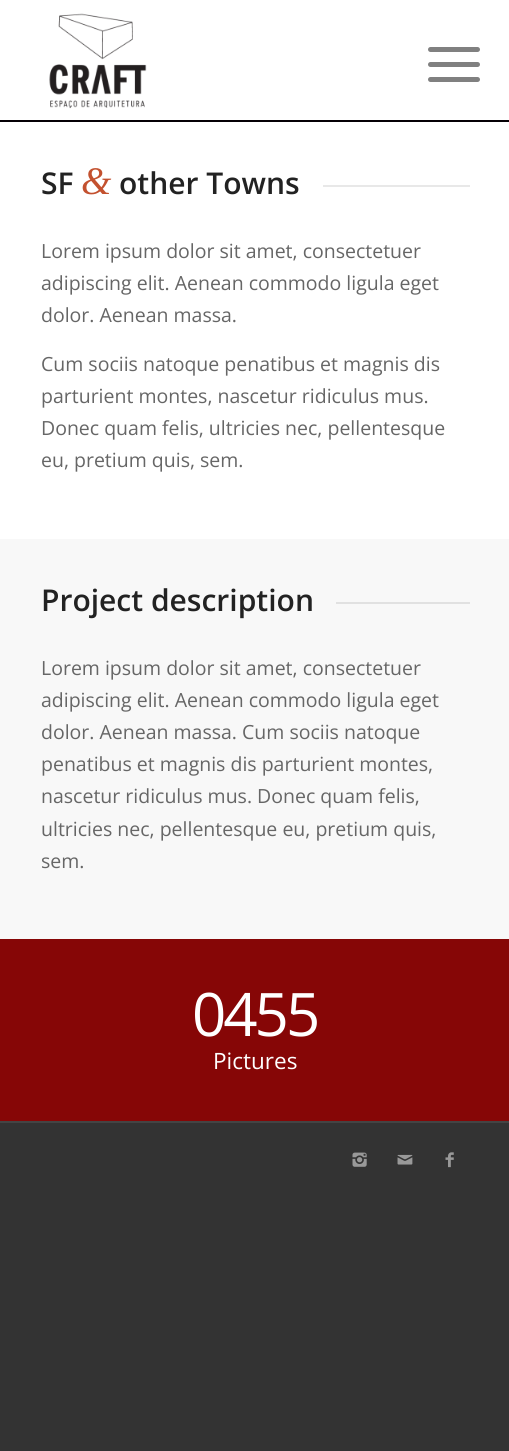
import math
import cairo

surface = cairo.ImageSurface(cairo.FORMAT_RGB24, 509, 1451)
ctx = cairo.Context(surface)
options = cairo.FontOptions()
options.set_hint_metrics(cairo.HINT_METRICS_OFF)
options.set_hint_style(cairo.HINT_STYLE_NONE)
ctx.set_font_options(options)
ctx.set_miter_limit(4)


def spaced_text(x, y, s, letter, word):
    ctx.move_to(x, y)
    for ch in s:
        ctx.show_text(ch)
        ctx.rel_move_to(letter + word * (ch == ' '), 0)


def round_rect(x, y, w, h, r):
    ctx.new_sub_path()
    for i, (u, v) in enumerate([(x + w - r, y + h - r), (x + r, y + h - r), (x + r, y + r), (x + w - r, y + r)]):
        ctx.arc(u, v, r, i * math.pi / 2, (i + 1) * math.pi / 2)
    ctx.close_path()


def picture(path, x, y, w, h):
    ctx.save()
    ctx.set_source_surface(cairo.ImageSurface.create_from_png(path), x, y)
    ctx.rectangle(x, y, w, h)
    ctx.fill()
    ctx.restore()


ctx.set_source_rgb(0.2, 0.2, 0.2)
ctx.paint()
ctx.set_source_rgb(1, 1, 1)
ctx.rectangle(0, 0, 509, 539)
ctx.fill()
ctx.set_source_rgb(0.02, 0, 0.02)
ctx.rectangle(0, 120, 509, 2)
ctx.fill()
picture("img1.png", 49, 13, 98, 96)
ctx.set_source_rgb(0.502, 0.502, 0.502)
round_rect(428, 62, 52, 5, 2.5)
ctx.fill()
round_rect(428, 47, 52, 5, 2.5)
ctx.fill()
round_rect(428, 77, 52, 5, 2.5)
ctx.fill()
ctx.select_font_face("Open Sans SemiBold")
ctx.set_font_size(30)
ctx.set_source_rgb(0.133, 0.133, 0.133)
ctx.move_to(41, 194)
ctx.show_text("SF")
ctx.select_font_face("Liberation Serif", cairo.FONT_SLANT_ITALIC)
ctx.set_font_size(39)
ctx.set_source_rgb(0.765, 0.318, 0.184)
ctx.move_to(81, 194)
ctx.show_text("&")
ctx.select_font_face("Open Sans SemiBold")
ctx.set_font_size(30)
ctx.set_source_rgb(0.133, 0.133, 0.133)
ctx.move_to(119, 194)
ctx.show_text("other Towns")
ctx.set_source_rgb(0.91, 0.91, 0.91)
ctx.rectangle(323, 185, 147, 2)
ctx.fill()
ctx.select_font_face("Open Sans")
ctx.set_font_size(19.5)
ctx.set_source_rgb(0.4, 0.4, 0.4)
ctx.move_to(41, 258)
ctx.show_text("Lorem ipsum dolor sit amet, consectetuer")
ctx.move_to(41, 290)
ctx.show_text("adipiscing elit. Aenean commodo ligula eget")
ctx.move_to(41, 322)
ctx.show_text("dolor. Aenean massa.")
ctx.move_to(41, 371)
ctx.show_text("Cum sociis natoque penatibus et magnis dis")
ctx.move_to(41, 403)
ctx.show_text("parturient montes, nascetur ridiculus mus.")
ctx.move_to(41, 435)
ctx.show_text("Donec quam felis, ultricies nec, pellentesque")
ctx.move_to(41, 467)
ctx.show_text("eu, pretium quis, sem.")
ctx.set_source_rgb(0.969, 0.969, 0.969)
ctx.rectangle(0, 539, 509, 400)
ctx.fill()
ctx.select_font_face("Open Sans SemiBold")
ctx.set_font_size(30)
ctx.set_source_rgb(0.133, 0.133, 0.133)
ctx.move_to(41, 611)
ctx.show_text("Project description")
ctx.set_source_rgb(0.882, 0.882, 0.882)
ctx.rectangle(336, 602, 134, 2)
ctx.fill()
ctx.select_font_face("Open Sans")
ctx.set_font_size(19.5)
ctx.set_source_rgb(0.4, 0.4, 0.4)
ctx.move_to(41, 675)
ctx.show_text("Lorem ipsum dolor sit amet, consectetuer")
ctx.move_to(41, 707)
ctx.show_text("adipiscing elit. Aenean commodo ligula eget")
ctx.move_to(41, 739)
ctx.show_text("dolor. Aenean massa. Cum sociis natoque")
ctx.move_to(41, 771)
ctx.show_text("penatibus et magnis dis parturient montes,")
ctx.move_to(41, 803)
ctx.show_text("nascetur ridiculus mus. Donec quam felis,")
ctx.move_to(41, 836)
ctx.show_text("ultricies nec, pellentesque eu, pretium quis,")
ctx.move_to(41, 868)
ctx.show_text("sem.")
ctx.set_source_rgb(0.525, 0.024, 0.024)
ctx.rectangle(0, 939, 509, 182)
ctx.fill()
ctx.set_font_size(60)
ctx.set_source_rgb(1, 1, 1)
spaced_text(192, 1036, "0455", -3, 0)
ctx.set_font_size(22.5)
ctx.move_to(213, 1069)
ctx.show_text("Pictures")
ctx.set_source_rgb(0.267, 0.267, 0.267)
ctx.rectangle(0, 1121, 509, 2)
ctx.fill()
picture("img2.png", 352, 1152, 15, 15)
picture("img3.png", 397, 1154, 16, 11)
picture("img4.png", 445, 1152, 9, 16)
surface.write_to_png("page.png")
